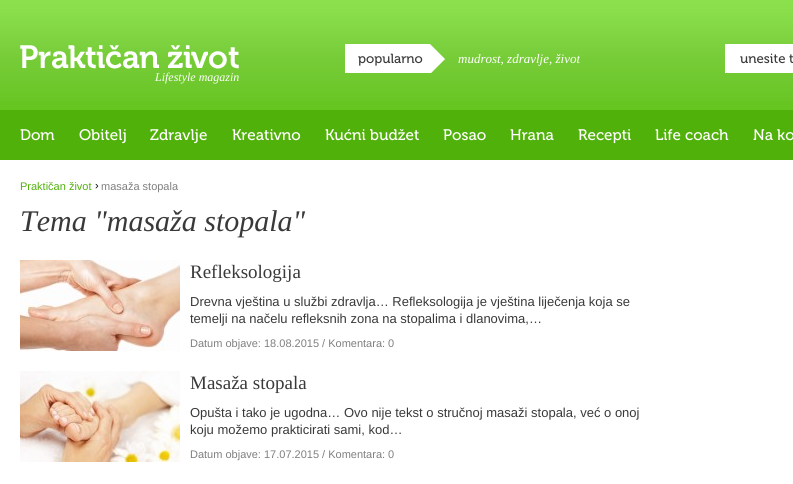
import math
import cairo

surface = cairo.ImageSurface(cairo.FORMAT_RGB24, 793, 484)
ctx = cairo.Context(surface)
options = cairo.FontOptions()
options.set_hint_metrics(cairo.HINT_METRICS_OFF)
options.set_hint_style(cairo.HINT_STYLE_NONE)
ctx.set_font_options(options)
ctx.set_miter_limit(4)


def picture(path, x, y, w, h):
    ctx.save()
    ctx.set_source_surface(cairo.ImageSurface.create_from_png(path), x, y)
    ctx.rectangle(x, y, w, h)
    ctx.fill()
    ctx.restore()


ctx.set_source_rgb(1, 1, 1)
ctx.paint()
ctx.set_source_rgb(0.4, 0.773, 0.125)
ctx.rectangle(0, 101, 793, 9)
ctx.fill()
picture("img1.png", 0, 0, 793, 101)
picture("img2.png", 345, 44, 100, 29)
ctx.select_font_face("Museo")
ctx.set_font_size(13)
ctx.set_source_rgb(0.224, 0.224, 0.224)
ctx.move_to(358, 63)
ctx.show_text("popularno")
ctx.select_font_face("Liberation Serif", cairo.FONT_SLANT_ITALIC)
ctx.set_source_rgb(1, 1, 1)
ctx.move_to(458, 63)
ctx.show_text("mudrost, zdravlje, život")
ctx.rectangle(725, 44, 68, 29)
ctx.fill()
ctx.select_font_face("Museo")
ctx.set_source_rgb(0.224, 0.224, 0.224)
ctx.move_to(740, 63)
ctx.show_text("unesite t")
picture("img3.png", 20, 45, 219, 24)
ctx.select_font_face("Liberation Serif", cairo.FONT_SLANT_ITALIC)
ctx.set_font_size(12)
ctx.set_source_rgb(1, 1, 1)
ctx.move_to(155, 81)
ctx.show_text("Lifestyle magazin")
ctx.set_source_rgb(0.318, 0.694, 0.043)
ctx.rectangle(0, 110, 793, 50)
ctx.fill()
ctx.select_font_face("Museo")
ctx.set_font_size(15)
ctx.set_source_rgb(1, 1, 1)
ctx.move_to(20, 140)
ctx.show_text("Dom")
ctx.move_to(79, 140)
ctx.show_text("Obitelj")
ctx.move_to(150, 140)
ctx.show_text("Zdravlje")
ctx.move_to(232, 140)
ctx.show_text("Kreativno")
ctx.move_to(325, 140)
ctx.show_text("Kućni budžet")
ctx.move_to(443, 140)
ctx.show_text("Posao")
ctx.move_to(510, 140)
ctx.show_text("Hrana")
ctx.move_to(578, 140)
ctx.show_text("Recepti")
ctx.move_to(655, 140)
ctx.show_text("Life coach")
ctx.move_to(753, 140)
ctx.show_text("Na ko")
ctx.select_font_face("Liberation Sans")
ctx.set_font_size(11)
ctx.set_source_rgb(0.318, 0.694, 0.043)
ctx.move_to(20, 190)
ctx.show_text("Praktičan život")
ctx.set_source_rgb(0, 0, 0)
ctx.move_to(95, 189)
ctx.show_text("›")
ctx.set_source_rgb(0.498, 0.498, 0.498)
ctx.move_to(101, 190)
ctx.show_text("masaža stopala")
ctx.select_font_face("Liberation Serif", cairo.FONT_SLANT_ITALIC)
ctx.set_font_size(30)
ctx.set_source_rgb(0.224, 0.224, 0.224)
ctx.move_to(20, 231)
ctx.show_text("Tema \"masaža stopala\"")
picture("img4.png", 20, 260, 160, 91)
ctx.select_font_face("Liberation Serif")
ctx.set_font_size(19)
ctx.move_to(190, 278)
ctx.show_text("Refleksologija")
ctx.select_font_face("Liberation Sans")
ctx.set_font_size(13)
ctx.move_to(190, 306)
ctx.show_text("Drevna vještina u službi zdravlja… Refleksologija je vještina liječenja koja se")
ctx.move_to(190, 323)
ctx.show_text("temelji na načelu refleksnih zona na stopalima i dlanovima,…")
ctx.set_font_size(11)
ctx.set_source_rgb(0.498, 0.498, 0.498)
ctx.move_to(190, 347)
ctx.show_text("Datum objave: 18.08.2015 / Komentara: 0")
picture("img5.png", 20, 371, 160, 91)
ctx.select_font_face("Liberation Serif")
ctx.set_font_size(19)
ctx.set_source_rgb(0.224, 0.224, 0.224)
ctx.move_to(190, 389)
ctx.show_text("Masaža stopala")
ctx.select_font_face("Liberation Sans")
ctx.set_font_size(13)
ctx.move_to(190, 417)
ctx.show_text("Opušta i tako je ugodna… Ovo nije tekst o stručnoj masaži stopala, već o onoj")
ctx.move_to(190, 434)
ctx.show_text("koju možemo prakticirati sami, kod…")
ctx.set_font_size(11)
ctx.set_source_rgb(0.498, 0.498, 0.498)
ctx.move_to(190, 458)
ctx.show_text("Datum objave: 17.07.2015 / Komentara: 0")
surface.write_to_png("page.png")
